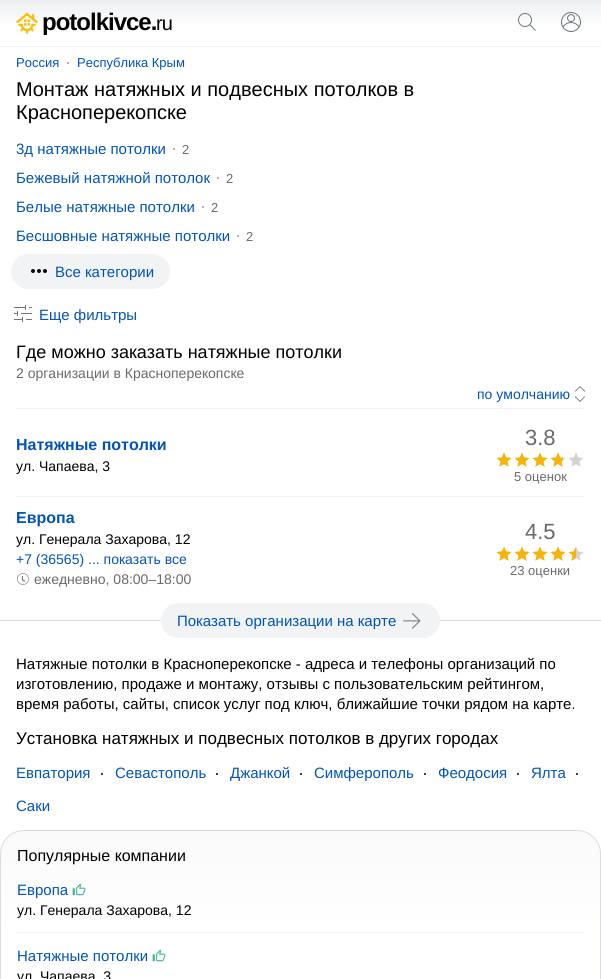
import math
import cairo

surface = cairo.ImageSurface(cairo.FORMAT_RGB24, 601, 979)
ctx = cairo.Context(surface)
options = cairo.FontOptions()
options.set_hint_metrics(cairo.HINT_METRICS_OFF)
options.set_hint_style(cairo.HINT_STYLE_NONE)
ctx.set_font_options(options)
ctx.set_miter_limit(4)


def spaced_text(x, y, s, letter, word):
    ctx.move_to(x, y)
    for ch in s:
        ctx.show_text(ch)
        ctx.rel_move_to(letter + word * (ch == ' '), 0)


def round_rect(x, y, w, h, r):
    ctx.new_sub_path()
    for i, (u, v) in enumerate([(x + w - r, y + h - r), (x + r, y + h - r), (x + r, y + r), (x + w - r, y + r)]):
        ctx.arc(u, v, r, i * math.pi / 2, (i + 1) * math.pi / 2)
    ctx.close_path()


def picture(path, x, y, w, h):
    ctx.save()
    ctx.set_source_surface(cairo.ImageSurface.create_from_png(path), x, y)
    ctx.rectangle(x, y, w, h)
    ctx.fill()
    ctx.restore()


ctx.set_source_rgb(1, 1, 1)
ctx.paint()
gradient = cairo.LinearGradient(301, 0, 301, 46)
gradient.add_color_stop_rgba(0, 0.925, 0.937, 0.945, 1)
gradient.add_color_stop_rgba(0.6, 1, 1, 1, 1)
ctx.set_source(gradient)
ctx.rectangle(0, 0, 601, 24)
ctx.fill()
ctx.set_source_rgb(0.945, 0.945, 0.945)
ctx.rectangle(0, 46, 601, 1)
ctx.fill()
picture("img1.png", 16, 12, 22, 22)
ctx.select_font_face("Liberation Sans", cairo.FONT_SLANT_NORMAL, cairo.FONT_WEIGHT_BOLD)
ctx.set_font_size(24)
ctx.set_source_rgb(0, 0, 0)
spaced_text(42, 30, "potolkivce.", -1, 0)
ctx.select_font_face("Liberation Sans")
ctx.set_font_size(20)
spaced_text(156, 30, "ru", -1, 0)
picture("img2.png", 518, 13, 18, 18)
picture("img3.png", 561, 12, 20, 20)
ctx.set_font_size(13)
ctx.set_source_rgb(0, 0.329, 0.725)
ctx.move_to(16, 67)
ctx.show_text("Россия")
ctx.set_source_rgb(0.6, 0.6, 0.6)
ctx.new_path()
ctx.arc(68, 63, 1, 0, 2 * math.pi)
ctx.fill()
ctx.set_source_rgb(0, 0.329, 0.725)
ctx.move_to(77, 67)
ctx.show_text("Республика Крым")
ctx.set_font_size(20)
ctx.set_source_rgb(0, 0, 0)
ctx.move_to(16, 96)
ctx.show_text("Монтаж натяжных и подвесных потолков в")
ctx.move_to(16, 119)
ctx.show_text("Красноперекопске")
ctx.set_font_size(15)
ctx.set_source_rgb(0, 0.329, 0.725)
ctx.move_to(16, 154)
ctx.show_text("3д натяжные потолки")
ctx.set_source_rgb(0.6, 0.6, 0.6)
ctx.new_path()
ctx.arc(174, 149, 1, 0, 2 * math.pi)
ctx.fill()
ctx.set_font_size(13)
ctx.set_source_rgb(0.416, 0.416, 0.416)
ctx.move_to(182, 154)
ctx.show_text("2")
ctx.set_font_size(15)
ctx.set_source_rgb(0, 0.329, 0.725)
ctx.move_to(16, 183)
ctx.show_text("Бежевый натяжной потолок")
ctx.set_source_rgb(0.6, 0.6, 0.6)
ctx.new_path()
ctx.arc(218, 178, 1, 0, 2 * math.pi)
ctx.fill()
ctx.set_font_size(13)
ctx.set_source_rgb(0.416, 0.416, 0.416)
ctx.move_to(226, 183)
ctx.show_text("2")
ctx.set_font_size(15)
ctx.set_source_rgb(0, 0.329, 0.725)
ctx.move_to(16, 212)
ctx.show_text("Белые натяжные потолки")
ctx.set_source_rgb(0.6, 0.6, 0.6)
ctx.new_path()
ctx.arc(203, 207, 1, 0, 2 * math.pi)
ctx.fill()
ctx.set_font_size(13)
ctx.set_source_rgb(0.416, 0.416, 0.416)
ctx.move_to(211, 212)
ctx.show_text("2")
ctx.set_font_size(15)
ctx.set_source_rgb(0, 0.329, 0.725)
ctx.move_to(16, 241)
ctx.show_text("Бесшовные натяжные потолки")
ctx.set_source_rgb(0.6, 0.6, 0.6)
ctx.new_path()
ctx.arc(238, 236, 1, 0, 2 * math.pi)
ctx.fill()
ctx.set_font_size(13)
ctx.set_source_rgb(0.416, 0.416, 0.416)
ctx.move_to(246, 241)
ctx.show_text("2")
ctx.set_source_rgb(0.945, 0.953, 0.957)
round_rect(11, 254, 159, 35, 17.5)
ctx.fill()
picture("img4.png", 31, 269, 16, 4)
ctx.set_font_size(15)
ctx.set_source_rgb(0, 0.329, 0.725)
ctx.move_to(55, 277)
ctx.show_text("Все категории")
picture("img5.png", 14, 305, 18, 17)
ctx.move_to(39, 320)
ctx.show_text("Еще фильтры")
ctx.set_font_size(18)
ctx.set_source_rgb(0, 0, 0)
ctx.move_to(16, 358)
ctx.show_text("Где можно заказать натяжные потолки")
ctx.set_font_size(14)
ctx.set_source_rgb(0.416, 0.416, 0.416)
ctx.move_to(16, 378)
ctx.show_text("2 организации в Красноперекопске")
ctx.set_source_rgb(0.945, 0.945, 0.945)
ctx.rectangle(16, 408, 569, 1)
ctx.fill()
ctx.set_source_rgb(0, 0.329, 0.725)
ctx.move_to(477, 399)
ctx.show_text("по умолчанию")
picture("img6.png", 574, 386, 12, 16)
ctx.select_font_face("Liberation Sans", cairo.FONT_SLANT_NORMAL, cairo.FONT_WEIGHT_BOLD)
ctx.set_font_size(16)
ctx.move_to(16, 450)
ctx.show_text("Натяжные потолки")
ctx.select_font_face("Liberation Sans")
ctx.set_font_size(14)
ctx.set_source_rgb(0, 0, 0)
ctx.move_to(16, 471)
ctx.show_text("ул. Чапаева, 3")
ctx.set_font_size(22)
ctx.set_source_rgb(0.416, 0.416, 0.416)
ctx.move_to(525, 445)
ctx.show_text("3.8")
picture("img8.png", 496, 453, 88, 14)
picture("img7.png", 496, 452, 67, 15)
ctx.set_font_size(13)
ctx.move_to(514, 481)
ctx.show_text("5 оценок")
ctx.set_source_rgb(0.945, 0.945, 0.945)
ctx.rectangle(16, 496, 569, 1)
ctx.fill()
ctx.select_font_face("Liberation Sans", cairo.FONT_SLANT_NORMAL, cairo.FONT_WEIGHT_BOLD)
ctx.set_font_size(16)
ctx.set_source_rgb(0, 0.329, 0.725)
ctx.move_to(16, 523)
ctx.show_text("Европа")
ctx.select_font_face("Liberation Sans")
ctx.set_font_size(14)
ctx.set_source_rgb(0, 0, 0)
ctx.move_to(16, 544)
ctx.show_text("ул. Генерала Захарова, 12")
ctx.set_source_rgb(0, 0.329, 0.725)
ctx.move_to(16, 564)
ctx.show_text("+7 (36565) ... показать все")
picture("img9.png", 17, 573, 12, 12)
ctx.set_source_rgb(0.416, 0.416, 0.416)
ctx.move_to(34, 584)
ctx.show_text("ежедневно, 08:00–18:00")
ctx.set_font_size(22)
ctx.move_to(525, 539)
ctx.show_text("4.5")
picture("img8.png", 496, 547, 88, 14)
picture("img10.png", 496, 546, 80, 15)
ctx.set_font_size(13)
ctx.move_to(510, 575)
ctx.show_text("23 оценки")
ctx.set_source_rgb(0.855, 0.863, 0.878)
ctx.rectangle(0, 620, 601, 1)
ctx.fill()
ctx.set_source_rgb(0.945, 0.953, 0.957)
round_rect(161, 603, 279, 35, 17.5)
ctx.fill()
ctx.set_font_size(15)
ctx.set_source_rgb(0, 0.329, 0.725)
ctx.move_to(177, 626)
ctx.show_text("Показать организации на карте")
picture("img11.png", 403, 613, 18, 16)
ctx.set_source_rgb(0, 0, 0)
ctx.move_to(16, 669)
ctx.show_text("Натяжные потолки в Красноперекопске - адреса и телефоны организаций по")
ctx.move_to(16, 689)
ctx.show_text("изготовлению, продаже и монтажу, отзывы с пользовательским рейтингом,")
ctx.move_to(16, 709)
ctx.show_text("время работы, сайты, список услуг под ключ, ближайшие точки рядом на карте.")
ctx.set_font_size(17)
ctx.move_to(16, 744)
ctx.show_text("Установка натяжных и подвесных потолков в других городах")
ctx.set_font_size(15)
ctx.set_source_rgb(0, 0.329, 0.725)
ctx.move_to(16, 778)
ctx.show_text("Евпатория")
ctx.set_source_rgb(0, 0, 0)
ctx.new_path()
ctx.arc(102, 774, 1, 0, 2 * math.pi)
ctx.fill()
ctx.set_source_rgb(0, 0.329, 0.725)
ctx.move_to(115, 778)
ctx.show_text("Севастополь")
ctx.set_source_rgb(0, 0, 0)
ctx.new_path()
ctx.arc(217, 774, 1, 0, 2 * math.pi)
ctx.fill()
ctx.set_source_rgb(0, 0.329, 0.725)
ctx.move_to(230, 778)
ctx.show_text("Джанкой")
ctx.set_source_rgb(0, 0, 0)
ctx.new_path()
ctx.arc(301, 774, 1, 0, 2 * math.pi)
ctx.fill()
ctx.set_source_rgb(0, 0.329, 0.725)
ctx.move_to(314, 778)
ctx.show_text("Симферополь")
ctx.set_source_rgb(0, 0, 0)
ctx.new_path()
ctx.arc(425, 774, 1, 0, 2 * math.pi)
ctx.fill()
ctx.set_source_rgb(0, 0.329, 0.725)
ctx.move_to(438, 778)
ctx.show_text("Феодосия")
ctx.set_source_rgb(0, 0, 0)
ctx.new_path()
ctx.arc(518, 774, 1, 0, 2 * math.pi)
ctx.fill()
ctx.set_source_rgb(0, 0.329, 0.725)
ctx.move_to(531, 778)
ctx.show_text("Ялта")
ctx.set_source_rgb(0, 0, 0)
ctx.new_path()
ctx.arc(577, 774, 1, 0, 2 * math.pi)
ctx.fill()
ctx.set_source_rgb(0, 0.329, 0.725)
ctx.move_to(16, 811)
ctx.show_text("Саки")
ctx.save()
round_rect(0, 830, 601, 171, 24)
ctx.clip()
gradient = cairo.LinearGradient(301, 831, 301, 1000)
gradient.add_color_stop_rgba(0, 0.98, 0.98, 0.98, 1)
gradient.add_color_stop_rgba(0.6, 1, 1, 1, 1)
ctx.set_source(gradient)
ctx.rectangle(0, 831, 601, 148)
ctx.fill()
ctx.restore()
round_rect(0.5, 830.5, 600, 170, 23.5)
ctx.set_source_rgb(0.855, 0.863, 0.878)
ctx.set_line_width(1)
ctx.stroke()
ctx.set_font_size(16)
ctx.set_source_rgb(0, 0, 0)
ctx.move_to(17, 861)
ctx.show_text("Популярные компании")
ctx.set_font_size(15)
ctx.set_source_rgb(0, 0.329, 0.725)
ctx.move_to(17, 895)
ctx.show_text("Европа")
picture("img12.png", 72, 883, 14, 13)
ctx.set_font_size(14)
ctx.set_source_rgb(0, 0, 0)
ctx.move_to(17, 915)
ctx.show_text("ул. Генерала Захарова, 12")
ctx.set_source_rgb(0.945, 0.945, 0.945)
ctx.rectangle(17, 932, 567, 1)
ctx.fill()
ctx.set_font_size(15)
ctx.set_source_rgb(0, 0.329, 0.725)
ctx.move_to(17, 961)
ctx.show_text("Натяжные потолки")
picture("img13.png", 152, 949, 14, 13)
ctx.set_font_size(14)
ctx.set_source_rgb(0, 0, 0)
ctx.move_to(17, 981)
ctx.show_text("ул. Чапаева, 3")
surface.write_to_png("page.png")
